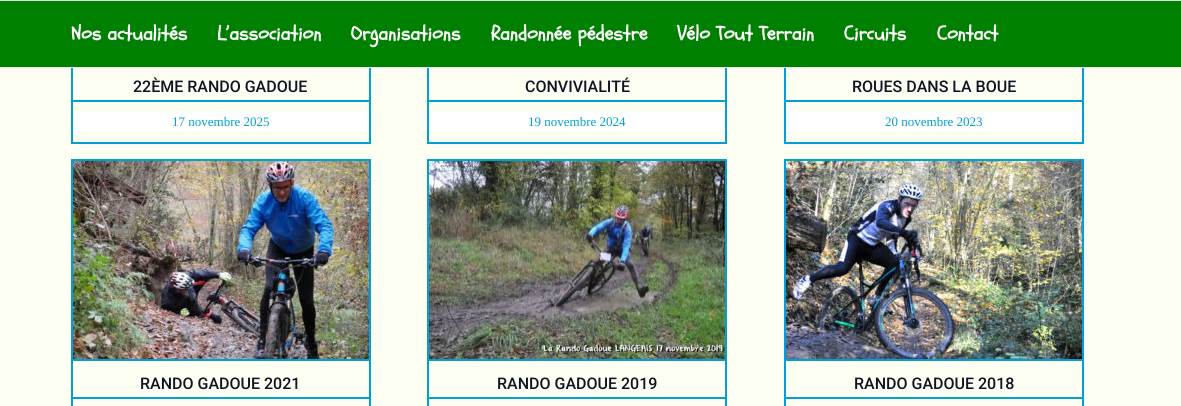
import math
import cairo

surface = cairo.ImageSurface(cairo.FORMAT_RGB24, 1181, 406)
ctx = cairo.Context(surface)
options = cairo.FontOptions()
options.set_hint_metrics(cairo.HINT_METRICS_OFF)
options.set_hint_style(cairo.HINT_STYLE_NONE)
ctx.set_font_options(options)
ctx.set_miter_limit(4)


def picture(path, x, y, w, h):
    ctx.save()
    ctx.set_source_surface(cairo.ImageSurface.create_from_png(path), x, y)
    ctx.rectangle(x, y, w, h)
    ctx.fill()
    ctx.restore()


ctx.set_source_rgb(0.992, 1, 0.953)
ctx.paint()
ctx.rectangle(72, -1, 298, 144)
ctx.set_source_rgb(0, 0.624, 0.831)
ctx.stroke()
ctx.rectangle(428, -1, 298, 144)
ctx.stroke()
ctx.rectangle(785, -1, 298, 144)
ctx.stroke()
ctx.set_source_rgb(0, 0.502, 0)
ctx.rectangle(0, 1, 1181, 66)
ctx.fill()
ctx.set_source_rgb(0.902, 0.902, 0.902)
ctx.rectangle(0, 0, 1181, 1)
ctx.fill()
ctx.rectangle(0, 67, 1181, 1)
ctx.fill()
ctx.select_font_face("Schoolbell", cairo.FONT_SLANT_NORMAL, cairo.FONT_WEIGHT_BOLD)
ctx.set_font_size(20)
ctx.set_source_rgb(1, 1, 1)
ctx.move_to(71, 40)
ctx.show_text("Nos actualités")
ctx.move_to(217, 40)
ctx.show_text("L’association")
ctx.move_to(351, 40)
ctx.show_text("Organisations")
ctx.move_to(491, 40)
ctx.show_text("Randonnée pédestre")
ctx.move_to(677, 40)
ctx.show_text("Vélo Tout Terrain")
ctx.move_to(844, 40)
ctx.show_text("Circuits")
ctx.move_to(937, 40)
ctx.show_text("Contact")
ctx.set_source_rgb(0, 0.624, 0.831)
ctx.rectangle(73, 100, 296, 2)
ctx.fill()
ctx.select_font_face("Roboto Medium")
ctx.set_font_size(16)
ctx.set_source_rgb(0.055, 0.082, 0.137)
ctx.move_to(133, 92)
ctx.show_text("22ÈME RANDO GADOUE")
ctx.set_source_rgb(1, 1, 1)
ctx.rectangle(73, 112, 296, 20)
ctx.fill()
ctx.select_font_face("Liberation Serif")
ctx.set_font_size(13)
ctx.set_source_rgb(0, 0.624, 0.831)
ctx.move_to(172, 126)
ctx.show_text("17 novembre 2025")
ctx.rectangle(429, 100, 296, 2)
ctx.fill()
ctx.select_font_face("Roboto Medium")
ctx.set_font_size(16)
ctx.set_source_rgb(0.055, 0.082, 0.137)
ctx.move_to(525, 92)
ctx.show_text("CONVIVIALITÉ")
ctx.set_source_rgb(1, 1, 1)
ctx.rectangle(429, 112, 296, 20)
ctx.fill()
ctx.select_font_face("Liberation Serif")
ctx.set_font_size(13)
ctx.set_source_rgb(0, 0.624, 0.831)
ctx.move_to(528, 126)
ctx.show_text("19 novembre 2024")
ctx.rectangle(786, 100, 296, 2)
ctx.fill()
ctx.select_font_face("Roboto Medium")
ctx.set_font_size(16)
ctx.set_source_rgb(0.055, 0.082, 0.137)
ctx.move_to(852, 92)
ctx.show_text("ROUES DANS LA BOUE")
ctx.set_source_rgb(1, 1, 1)
ctx.rectangle(786, 112, 296, 20)
ctx.fill()
ctx.select_font_face("Liberation Serif")
ctx.set_font_size(13)
ctx.set_source_rgb(0, 0.624, 0.831)
ctx.move_to(885, 126)
ctx.show_text("20 novembre 2023")
ctx.rectangle(72, 160, 298, 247)
ctx.stroke()
ctx.rectangle(73, 359, 296, 2)
ctx.fill()
picture("img1.png", 73, 161, 296, 198)
ctx.rectangle(73, 397, 296, 2)
ctx.fill()
ctx.select_font_face("Roboto Medium")
ctx.set_font_size(16)
ctx.set_source_rgb(0.055, 0.082, 0.137)
ctx.move_to(140, 389)
ctx.show_text("RANDO GADOUE 2021")
ctx.rectangle(428, 160, 298, 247)
ctx.set_source_rgb(0, 0.624, 0.831)
ctx.stroke()
ctx.rectangle(429, 359, 296, 2)
ctx.fill()
picture("img2.png", 429, 161, 296, 198)
ctx.rectangle(429, 397, 296, 2)
ctx.fill()
ctx.set_source_rgb(0.055, 0.082, 0.137)
ctx.move_to(497, 389)
ctx.show_text("RANDO GADOUE 2019")
ctx.rectangle(785, 160, 298, 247)
ctx.set_source_rgb(0, 0.624, 0.831)
ctx.stroke()
ctx.rectangle(786, 359, 296, 2)
ctx.fill()
picture("img3.png", 786, 161, 296, 198)
ctx.rectangle(786, 397, 296, 2)
ctx.fill()
ctx.set_source_rgb(0.055, 0.082, 0.137)
ctx.move_to(854, 389)
ctx.show_text("RANDO GADOUE 2018")
surface.write_to_png("page.png")
